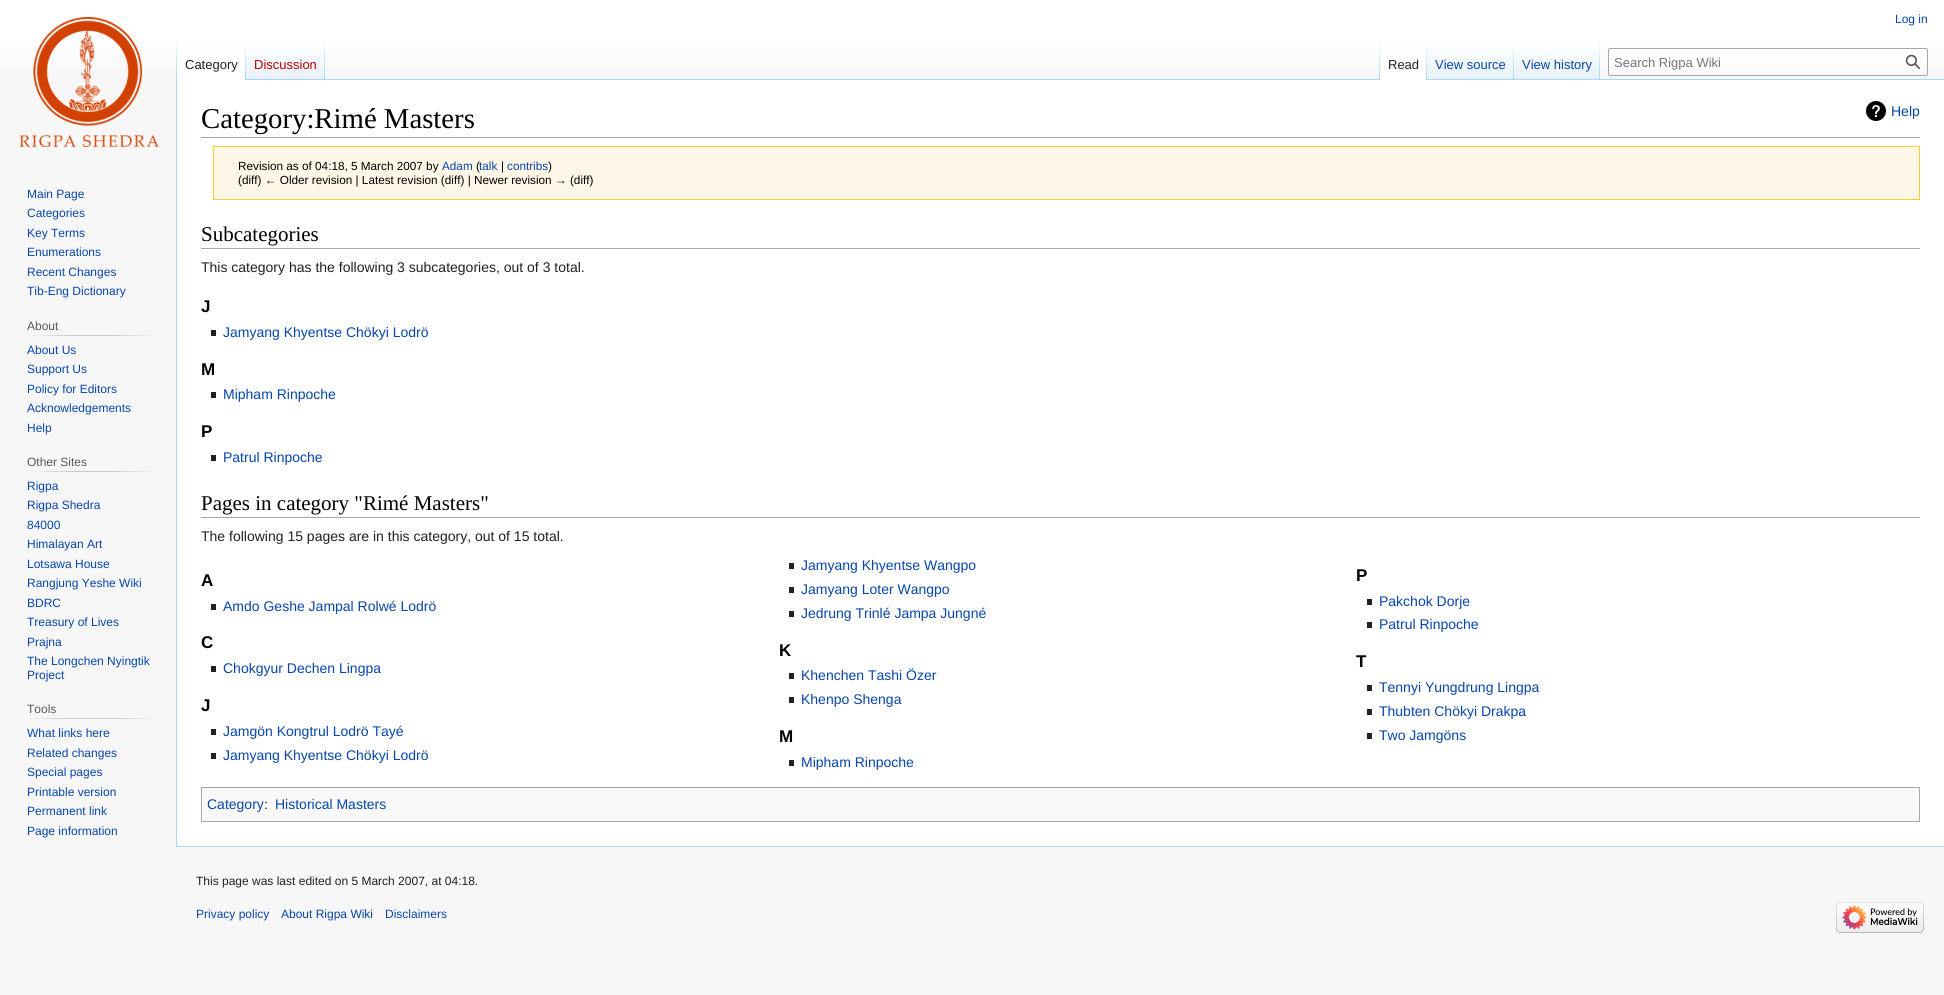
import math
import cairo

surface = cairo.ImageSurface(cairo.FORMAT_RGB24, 1944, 995)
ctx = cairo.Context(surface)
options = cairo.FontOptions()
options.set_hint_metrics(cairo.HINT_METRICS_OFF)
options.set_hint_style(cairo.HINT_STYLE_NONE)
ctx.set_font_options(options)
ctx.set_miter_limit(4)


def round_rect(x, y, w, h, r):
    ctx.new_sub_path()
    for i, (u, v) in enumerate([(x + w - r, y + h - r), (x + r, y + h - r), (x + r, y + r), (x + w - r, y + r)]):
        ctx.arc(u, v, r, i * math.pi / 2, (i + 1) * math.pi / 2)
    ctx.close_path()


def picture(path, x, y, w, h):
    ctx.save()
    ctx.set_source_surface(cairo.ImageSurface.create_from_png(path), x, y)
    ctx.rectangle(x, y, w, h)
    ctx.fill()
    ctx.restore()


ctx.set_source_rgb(0.965, 0.965, 0.965)
ctx.paint()
gradient = cairo.LinearGradient(972, 0, 972, 80)
gradient.add_color_stop_rgba(0.5, 1, 1, 1, 1)
gradient.add_color_stop_rgba(1, 0.965, 0.965, 0.965, 1)
ctx.set_source(gradient)
ctx.rectangle(0, 0, 1944, 69)
ctx.fill()
ctx.select_font_face("Liberation Sans")
ctx.set_font_size(12)
ctx.set_source_rgb(0.024, 0.271, 0.678)
ctx.move_to(1895, 23)
ctx.show_text("Log in")
ctx.set_source_rgb(0.655, 0.843, 0.976)
ctx.rectangle(176, 846, 1768, 1)
ctx.fill()
ctx.rectangle(176, 79, 1, 768)
ctx.fill()
gradient = cairo.LinearGradient(177, 40, 177, 80)
gradient.add_color_stop_rgba(0, 0.655, 0.843, 0.976, 0)
gradient.add_color_stop_rgba(1, 0.655, 0.843, 0.976, 1)
ctx.set_source(gradient)
ctx.rectangle(176, 40, 1, 40)
ctx.fill()
ctx.set_source_rgb(1, 1, 1)
ctx.rectangle(177, 51, 68, 29)
ctx.fill()
gradient = cairo.LinearGradient(246, 40, 246, 80)
gradient.add_color_stop_rgba(0, 1, 1, 1, 1)
gradient.add_color_stop_rgba(1, 0.655, 0.843, 0.976, 1)
ctx.set_source(gradient)
ctx.rectangle(245, 40, 1, 40)
ctx.fill()
ctx.set_font_size(13)
ctx.set_source_rgb(0.125, 0.129, 0.133)
ctx.move_to(185, 69)
ctx.show_text("Category")
gradient = cairo.LinearGradient(286, 80, 286, 40)
gradient.add_color_stop_rgba(0, 0.467, 0.757, 0.965, 1)
gradient.add_color_stop_rgba(0.03, 0.91, 0.949, 0.973, 1)
gradient.add_color_stop_rgba(1, 1, 1, 1, 1)
ctx.set_source(gradient)
ctx.rectangle(246, 46, 79, 34)
ctx.fill()
gradient = cairo.LinearGradient(325, 40, 325, 80)
gradient.add_color_stop_rgba(0, 0.655, 0.843, 0.976, 0)
gradient.add_color_stop_rgba(1, 0.655, 0.843, 0.976, 1)
ctx.set_source(gradient)
ctx.rectangle(324, 40, 1, 40)
ctx.fill()
ctx.set_source_rgb(0.729, 0, 0)
ctx.move_to(254, 69)
ctx.show_text("Discussion")
ctx.set_source_rgb(0.655, 0.843, 0.976)
ctx.rectangle(325, 79, 1619, 1)
ctx.fill()
gradient = cairo.LinearGradient(1380, 40, 1380, 80)
gradient.add_color_stop_rgba(0, 0.655, 0.843, 0.976, 0)
gradient.add_color_stop_rgba(1, 0.655, 0.843, 0.976, 1)
ctx.set_source(gradient)
ctx.rectangle(1379, 40, 1, 40)
ctx.fill()
ctx.set_source_rgb(1, 1, 1)
ctx.rectangle(1380, 51, 46, 29)
ctx.fill()
gradient = cairo.LinearGradient(1427, 40, 1427, 80)
gradient.add_color_stop_rgba(0, 1, 1, 1, 1)
gradient.add_color_stop_rgba(1, 0.655, 0.843, 0.976, 1)
ctx.set_source(gradient)
ctx.rectangle(1426, 40, 1, 40)
ctx.fill()
ctx.set_source_rgb(0.125, 0.129, 0.133)
ctx.move_to(1388, 69)
ctx.show_text("Read")
gradient = cairo.LinearGradient(1471, 80, 1471, 40)
gradient.add_color_stop_rgba(0, 0.467, 0.757, 0.965, 1)
gradient.add_color_stop_rgba(0.03, 0.91, 0.949, 0.973, 1)
gradient.add_color_stop_rgba(1, 1, 1, 1, 1)
ctx.set_source(gradient)
ctx.rectangle(1427, 46, 87, 33)
ctx.fill()
gradient = cairo.LinearGradient(1514, 40, 1514, 80)
gradient.add_color_stop_rgba(0, 0.655, 0.843, 0.976, 0)
gradient.add_color_stop_rgba(1, 0.655, 0.843, 0.976, 1)
ctx.set_source(gradient)
ctx.rectangle(1513, 40, 1, 40)
ctx.fill()
ctx.set_source_rgb(0.024, 0.271, 0.678)
ctx.move_to(1435, 69)
ctx.show_text("View source")
gradient = cairo.LinearGradient(1557, 80, 1557, 40)
gradient.add_color_stop_rgba(0, 0.467, 0.757, 0.965, 1)
gradient.add_color_stop_rgba(0.03, 0.91, 0.949, 0.973, 1)
gradient.add_color_stop_rgba(1, 1, 1, 1, 1)
ctx.set_source(gradient)
ctx.rectangle(1514, 46, 86, 33)
ctx.fill()
gradient = cairo.LinearGradient(1600, 40, 1600, 80)
gradient.add_color_stop_rgba(0, 0.655, 0.843, 0.976, 0)
gradient.add_color_stop_rgba(1, 0.655, 0.843, 0.976, 1)
ctx.set_source(gradient)
ctx.rectangle(1599, 40, 1, 40)
ctx.fill()
ctx.set_source_rgb(0.024, 0.271, 0.678)
ctx.move_to(1522, 69)
ctx.show_text("View history")
ctx.set_source_rgba(1, 1, 1, 0.5)
round_rect(1608.5, 48.5, 319, 27, 1.5)
ctx.fill_preserve()
ctx.set_source_rgb(0.635, 0.663, 0.694)
ctx.set_line_width(1)
ctx.stroke()
ctx.set_source_rgb(0.447, 0.467, 0.49)
ctx.move_to(1614, 67)
ctx.show_text("Search Rigpa Wiki")
picture("img1.png", 1905, 54, 15, 15)
picture("img2.png", 19, 17, 141, 131)
ctx.set_font_size(12)
ctx.set_source_rgb(0.024, 0.271, 0.678)
ctx.move_to(27, 198)
ctx.show_text("Main Page")
ctx.move_to(27, 217)
ctx.show_text("Categories")
ctx.move_to(27, 237)
ctx.show_text("Key Terms")
ctx.move_to(27, 256)
ctx.show_text("Enumerations")
ctx.move_to(27, 276)
ctx.show_text("Recent Changes")
ctx.move_to(27, 295)
ctx.show_text("Tib-Eng Dictionary")
gradient = cairo.LinearGradient(27, 336, 158, 336)
gradient.add_color_stop_rgba(0, 0.965, 0.965, 0.965, 1)
gradient.add_color_stop_rgba(0.33, 0.784, 0.8, 0.82, 1)
gradient.add_color_stop_rgba(0.66, 0.784, 0.8, 0.82, 1)
gradient.add_color_stop_rgba(1, 0.965, 0.965, 0.965, 1)
ctx.set_source(gradient)
ctx.rectangle(27, 335, 131, 1)
ctx.fill()
ctx.set_source_rgb(0.329, 0.349, 0.365)
ctx.move_to(27, 330)
ctx.show_text("About")
ctx.set_source_rgb(0.024, 0.271, 0.678)
ctx.move_to(27, 354)
ctx.show_text("About Us")
ctx.move_to(27, 373)
ctx.show_text("Support Us")
ctx.move_to(27, 393)
ctx.show_text("Policy for Editors")
ctx.move_to(27, 412)
ctx.show_text("Acknowledgements")
ctx.move_to(27, 432)
ctx.show_text("Help")
gradient = cairo.LinearGradient(27, 472, 158, 472)
gradient.add_color_stop_rgba(0, 0.965, 0.965, 0.965, 1)
gradient.add_color_stop_rgba(0.33, 0.784, 0.8, 0.82, 1)
gradient.add_color_stop_rgba(0.66, 0.784, 0.8, 0.82, 1)
gradient.add_color_stop_rgba(1, 0.965, 0.965, 0.965, 1)
ctx.set_source(gradient)
ctx.rectangle(27, 471, 131, 1)
ctx.fill()
ctx.set_source_rgb(0.329, 0.349, 0.365)
ctx.move_to(27, 466)
ctx.show_text("Other Sites")
ctx.set_source_rgb(0.024, 0.271, 0.678)
ctx.move_to(27, 490)
ctx.show_text("Rigpa")
ctx.move_to(27, 509)
ctx.show_text("Rigpa Shedra")
ctx.move_to(27, 529)
ctx.show_text("84000")
ctx.move_to(27, 548)
ctx.show_text("Himalayan Art")
ctx.move_to(27, 568)
ctx.show_text("Lotsawa House")
ctx.move_to(27, 587)
ctx.show_text("Rangjung Yeshe Wiki")
ctx.move_to(27, 607)
ctx.show_text("BDRC")
ctx.move_to(27, 626)
ctx.show_text("Treasury of Lives")
ctx.move_to(27, 646)
ctx.show_text("Prajna")
ctx.move_to(27, 665)
ctx.show_text("The Longchen Nyingtik")
ctx.move_to(27, 679)
ctx.show_text("Project")
gradient = cairo.LinearGradient(27, 719, 158, 719)
gradient.add_color_stop_rgba(0, 0.965, 0.965, 0.965, 1)
gradient.add_color_stop_rgba(0.33, 0.784, 0.8, 0.82, 1)
gradient.add_color_stop_rgba(0.66, 0.784, 0.8, 0.82, 1)
gradient.add_color_stop_rgba(1, 0.965, 0.965, 0.965, 1)
ctx.set_source(gradient)
ctx.rectangle(27, 718, 131, 1)
ctx.fill()
ctx.set_source_rgb(0.329, 0.349, 0.365)
ctx.move_to(27, 713)
ctx.show_text("Tools")
ctx.set_source_rgb(0.024, 0.271, 0.678)
ctx.move_to(27, 737)
ctx.show_text("What links here")
ctx.move_to(27, 757)
ctx.show_text("Related changes")
ctx.move_to(27, 776)
ctx.show_text("Special pages")
ctx.move_to(27, 796)
ctx.show_text("Printable version")
ctx.move_to(27, 815)
ctx.show_text("Permanent link")
ctx.move_to(27, 835)
ctx.show_text("Page information")
ctx.set_source_rgb(1, 1, 1)
ctx.rectangle(177, 80, 1767, 766)
ctx.fill()
ctx.set_source_rgb(0.635, 0.663, 0.694)
ctx.rectangle(201, 137, 1719, 1)
ctx.fill()
ctx.select_font_face("Liberation Serif")
ctx.set_font_size(28.75)
ctx.set_source_rgb(0, 0, 0)
ctx.move_to(201, 128)
ctx.show_text("Category:Rimé Masters")
picture("img3.png", 1866, 101, 20, 20)
ctx.select_font_face("Liberation Sans")
ctx.set_font_size(14)
ctx.set_source_rgb(0.024, 0.271, 0.678)
ctx.move_to(1891, 116)
ctx.show_text("Help")
ctx.set_source_rgb(0.996, 0.965, 0.906)
ctx.rectangle(213.5, 146.5, 1706, 53)
ctx.fill_preserve()
ctx.set_source_rgb(1, 0.8, 0.2)
ctx.stroke()
ctx.set_font_size(11.75)
ctx.set_source_rgb(0, 0, 0)
ctx.move_to(238, 170)
ctx.show_text("Revision as of 04:18, 5 March 2007 by")
ctx.set_source_rgb(0.024, 0.271, 0.678)
ctx.move_to(442, 170)
ctx.show_text("Adam")
ctx.set_source_rgb(0, 0, 0)
ctx.move_to(476, 170)
ctx.show_text("(")
ctx.set_source_rgb(0.024, 0.271, 0.678)
ctx.move_to(479, 170)
ctx.show_text("talk")
ctx.set_source_rgb(0, 0, 0)
ctx.move_to(501, 170)
ctx.show_text("|")
ctx.set_source_rgb(0.024, 0.271, 0.678)
ctx.move_to(507, 170)
ctx.show_text("contribs")
ctx.set_source_rgb(0, 0, 0)
ctx.move_to(548, 170)
ctx.show_text(")")
ctx.move_to(238, 184)
ctx.show_text("(diff) ← Older revision | Latest revision (diff) | Newer revision → (diff)")
ctx.set_source_rgb(0.635, 0.663, 0.694)
ctx.rectangle(201, 248, 1719, 1)
ctx.fill()
ctx.select_font_face("Liberation Serif")
ctx.set_font_size(21)
ctx.set_source_rgb(0, 0, 0)
ctx.move_to(201, 241)
ctx.show_text("Subcategories")
ctx.select_font_face("Liberation Sans")
ctx.set_font_size(14)
ctx.set_source_rgb(0.125, 0.129, 0.133)
ctx.move_to(201, 272)
ctx.show_text("This category has the following 3 subcategories, out of 3 total.")
ctx.select_font_face("Liberation Sans", cairo.FONT_SLANT_NORMAL, cairo.FONT_WEIGHT_BOLD)
ctx.set_font_size(17)
ctx.set_source_rgb(0, 0, 0)
ctx.move_to(201, 312)
ctx.show_text("J")
ctx.set_source_rgb(0.125, 0.129, 0.133)
ctx.rectangle(211, 330, 5, 6)
ctx.fill()
ctx.select_font_face("Liberation Sans")
ctx.set_font_size(14)
ctx.set_source_rgb(0.024, 0.271, 0.678)
ctx.move_to(223, 337)
ctx.show_text("Jamyang Khyentse Chökyi Lodrö")
ctx.select_font_face("Liberation Sans", cairo.FONT_SLANT_NORMAL, cairo.FONT_WEIGHT_BOLD)
ctx.set_font_size(17)
ctx.set_source_rgb(0, 0, 0)
ctx.move_to(201, 375)
ctx.show_text("M")
ctx.set_source_rgb(0.125, 0.129, 0.133)
ctx.rectangle(211, 392, 5, 6)
ctx.fill()
ctx.select_font_face("Liberation Sans")
ctx.set_font_size(14)
ctx.set_source_rgb(0.024, 0.271, 0.678)
ctx.move_to(223, 399)
ctx.show_text("Mipham Rinpoche")
ctx.select_font_face("Liberation Sans", cairo.FONT_SLANT_NORMAL, cairo.FONT_WEIGHT_BOLD)
ctx.set_font_size(17)
ctx.set_source_rgb(0, 0, 0)
ctx.move_to(201, 437)
ctx.show_text("P")
ctx.set_source_rgb(0.125, 0.129, 0.133)
ctx.rectangle(211, 455, 5, 6)
ctx.fill()
ctx.select_font_face("Liberation Sans")
ctx.set_font_size(14)
ctx.set_source_rgb(0.024, 0.271, 0.678)
ctx.move_to(223, 462)
ctx.show_text("Patrul Rinpoche")
ctx.set_source_rgb(0.635, 0.663, 0.694)
ctx.rectangle(201, 517, 1719, 1)
ctx.fill()
ctx.select_font_face("Liberation Serif")
ctx.set_font_size(21)
ctx.set_source_rgb(0, 0, 0)
ctx.move_to(201, 510)
ctx.show_text("Pages in category \"Rimé Masters\"")
ctx.select_font_face("Liberation Sans")
ctx.set_font_size(14)
ctx.set_source_rgb(0.125, 0.129, 0.133)
ctx.move_to(201, 541)
ctx.show_text("The following 15 pages are in this category, out of 15 total.")
ctx.select_font_face("Liberation Sans", cairo.FONT_SLANT_NORMAL, cairo.FONT_WEIGHT_BOLD)
ctx.set_font_size(17)
ctx.set_source_rgb(0, 0, 0)
ctx.move_to(201, 711)
ctx.show_text("J")
ctx.set_source_rgb(0.125, 0.129, 0.133)
ctx.rectangle(789, 563, 5, 6)
ctx.fill()
ctx.select_font_face("Liberation Sans")
ctx.set_font_size(14)
ctx.set_source_rgb(0.024, 0.271, 0.678)
ctx.move_to(801, 570)
ctx.show_text("Jamyang Khyentse Wangpo")
ctx.set_source_rgb(0.125, 0.129, 0.133)
ctx.rectangle(789, 587, 5, 6)
ctx.fill()
ctx.set_source_rgb(0.024, 0.271, 0.678)
ctx.move_to(801, 594)
ctx.show_text("Jamyang Loter Wangpo")
ctx.set_source_rgb(0.125, 0.129, 0.133)
ctx.rectangle(789, 611, 5, 6)
ctx.fill()
ctx.set_source_rgb(0.024, 0.271, 0.678)
ctx.move_to(801, 618)
ctx.show_text("Jedrung Trinlé Jampa Jungné")
ctx.set_source_rgb(0.125, 0.129, 0.133)
ctx.rectangle(211, 729, 5, 6)
ctx.fill()
ctx.set_source_rgb(0.024, 0.271, 0.678)
ctx.move_to(223, 736)
ctx.show_text("Jamgön Kongtrul Lodrö Tayé")
ctx.set_source_rgb(0.125, 0.129, 0.133)
ctx.rectangle(211, 753, 5, 6)
ctx.fill()
ctx.set_source_rgb(0.024, 0.271, 0.678)
ctx.move_to(223, 760)
ctx.show_text("Jamyang Khyentse Chökyi Lodrö")
ctx.select_font_face("Liberation Sans", cairo.FONT_SLANT_NORMAL, cairo.FONT_WEIGHT_BOLD)
ctx.set_font_size(17)
ctx.set_source_rgb(0, 0, 0)
ctx.move_to(1356, 581)
ctx.show_text("P")
ctx.set_source_rgb(0.125, 0.129, 0.133)
ctx.rectangle(1367, 599, 5, 6)
ctx.fill()
ctx.select_font_face("Liberation Sans")
ctx.set_font_size(14)
ctx.set_source_rgb(0.024, 0.271, 0.678)
ctx.move_to(1379, 606)
ctx.show_text("Pakchok Dorje")
ctx.set_source_rgb(0.125, 0.129, 0.133)
ctx.rectangle(1367, 622, 5, 6)
ctx.fill()
ctx.set_source_rgb(0.024, 0.271, 0.678)
ctx.move_to(1379, 629)
ctx.show_text("Patrul Rinpoche")
ctx.select_font_face("Liberation Sans", cairo.FONT_SLANT_NORMAL, cairo.FONT_WEIGHT_BOLD)
ctx.set_font_size(17)
ctx.set_source_rgb(0, 0, 0)
ctx.move_to(201, 586)
ctx.show_text("A")
ctx.set_source_rgb(0.125, 0.129, 0.133)
ctx.rectangle(211, 604, 5, 6)
ctx.fill()
ctx.select_font_face("Liberation Sans")
ctx.set_font_size(14)
ctx.set_source_rgb(0.024, 0.271, 0.678)
ctx.move_to(223, 611)
ctx.show_text("Amdo Geshe Jampal Rolwé Lodrö")
ctx.select_font_face("Liberation Sans", cairo.FONT_SLANT_NORMAL, cairo.FONT_WEIGHT_BOLD)
ctx.set_font_size(17)
ctx.set_source_rgb(0, 0, 0)
ctx.move_to(201, 648)
ctx.show_text("C")
ctx.set_source_rgb(0.125, 0.129, 0.133)
ctx.rectangle(211, 666, 5, 6)
ctx.fill()
ctx.select_font_face("Liberation Sans")
ctx.set_font_size(14)
ctx.set_source_rgb(0.024, 0.271, 0.678)
ctx.move_to(223, 673)
ctx.show_text("Chokgyur Dechen Lingpa")
ctx.select_font_face("Liberation Sans", cairo.FONT_SLANT_NORMAL, cairo.FONT_WEIGHT_BOLD)
ctx.set_font_size(17)
ctx.set_source_rgb(0, 0, 0)
ctx.move_to(779, 656)
ctx.show_text("K")
ctx.set_source_rgb(0.125, 0.129, 0.133)
ctx.rectangle(789, 673, 5, 6)
ctx.fill()
ctx.select_font_face("Liberation Sans")
ctx.set_font_size(14)
ctx.set_source_rgb(0.024, 0.271, 0.678)
ctx.move_to(801, 680)
ctx.show_text("Khenchen Tashi Özer")
ctx.set_source_rgb(0.125, 0.129, 0.133)
ctx.rectangle(789, 697, 5, 6)
ctx.fill()
ctx.set_source_rgb(0.024, 0.271, 0.678)
ctx.move_to(801, 704)
ctx.show_text("Khenpo Shenga")
ctx.select_font_face("Liberation Sans", cairo.FONT_SLANT_NORMAL, cairo.FONT_WEIGHT_BOLD)
ctx.set_font_size(17)
ctx.set_source_rgb(0, 0, 0)
ctx.move_to(1356, 667)
ctx.show_text("T")
ctx.set_source_rgb(0.125, 0.129, 0.133)
ctx.rectangle(1367, 685, 5, 6)
ctx.fill()
ctx.select_font_face("Liberation Sans")
ctx.set_font_size(14)
ctx.set_source_rgb(0.024, 0.271, 0.678)
ctx.move_to(1379, 692)
ctx.show_text("Tennyi Yungdrung Lingpa")
ctx.set_source_rgb(0.125, 0.129, 0.133)
ctx.rectangle(1367, 709, 5, 6)
ctx.fill()
ctx.set_source_rgb(0.024, 0.271, 0.678)
ctx.move_to(1379, 716)
ctx.show_text("Thubten Chökyi Drakpa")
ctx.set_source_rgb(0.125, 0.129, 0.133)
ctx.rectangle(1367, 733, 5, 6)
ctx.fill()
ctx.set_source_rgb(0.024, 0.271, 0.678)
ctx.move_to(1379, 740)
ctx.show_text("Two Jamgöns")
ctx.select_font_face("Liberation Sans", cairo.FONT_SLANT_NORMAL, cairo.FONT_WEIGHT_BOLD)
ctx.set_font_size(17)
ctx.set_source_rgb(0, 0, 0)
ctx.move_to(779, 742)
ctx.show_text("M")
ctx.set_source_rgb(0.125, 0.129, 0.133)
ctx.rectangle(789, 760, 5, 6)
ctx.fill()
ctx.select_font_face("Liberation Sans")
ctx.set_font_size(14)
ctx.set_source_rgb(0.024, 0.271, 0.678)
ctx.move_to(801, 767)
ctx.show_text("Mipham Rinpoche")
ctx.set_source_rgb(0.973, 0.976, 0.98)
ctx.rectangle(201.5, 787.5, 1718, 34)
ctx.fill_preserve()
ctx.set_source_rgb(0.635, 0.663, 0.694)
ctx.stroke()
ctx.set_source_rgb(0.024, 0.271, 0.678)
ctx.move_to(207, 809)
ctx.show_text("Category")
ctx.set_source_rgb(0.125, 0.129, 0.133)
ctx.move_to(264, 809)
ctx.show_text(":")
ctx.set_source_rgb(0.024, 0.271, 0.678)
ctx.move_to(275, 809)
ctx.show_text("Historical Masters")
ctx.set_font_size(12)
ctx.set_source_rgb(0.125, 0.129, 0.133)
ctx.move_to(196, 885)
ctx.show_text("This page was last edited on 5 March 2007, at 04:18.")
ctx.set_source_rgb(0.024, 0.271, 0.678)
ctx.move_to(196, 918)
ctx.show_text("Privacy policy")
ctx.move_to(281, 918)
ctx.show_text("About Rigpa Wiki")
ctx.move_to(385, 918)
ctx.show_text("Disclaimers")
picture("img4.png", 1836, 902, 88, 31)
surface.write_to_png("page.png")
